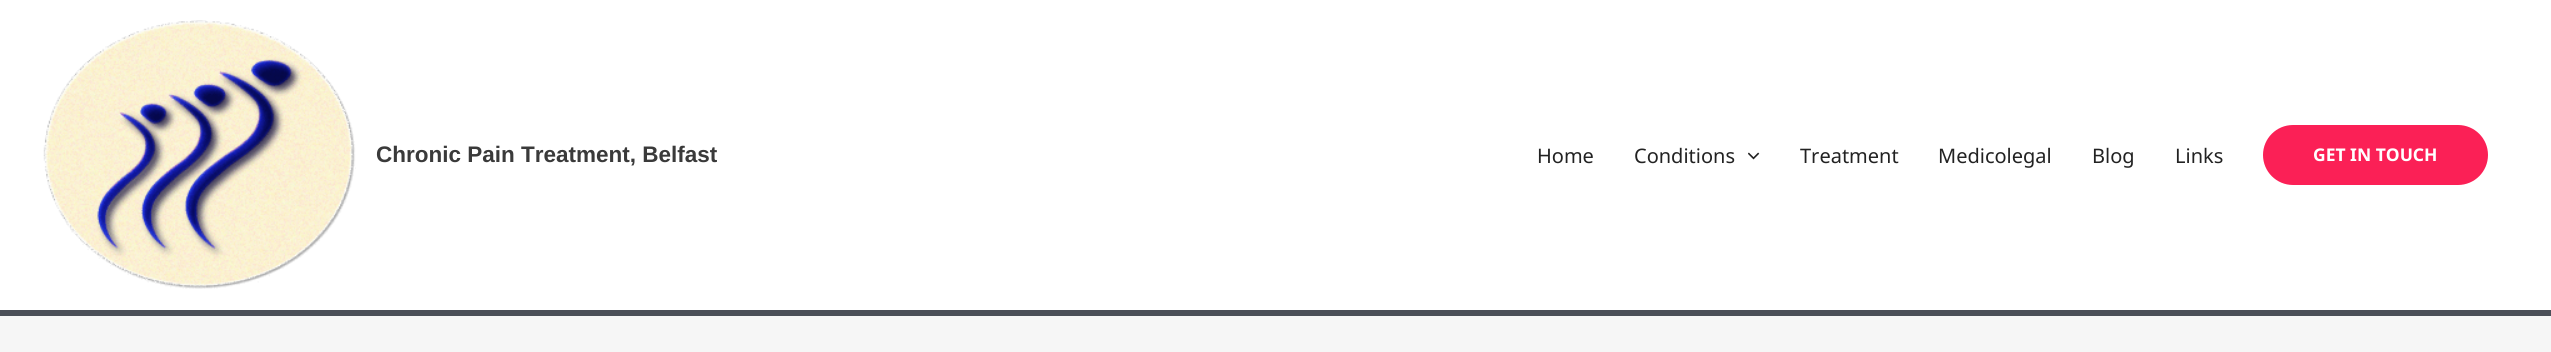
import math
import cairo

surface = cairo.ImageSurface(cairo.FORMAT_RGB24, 2551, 352)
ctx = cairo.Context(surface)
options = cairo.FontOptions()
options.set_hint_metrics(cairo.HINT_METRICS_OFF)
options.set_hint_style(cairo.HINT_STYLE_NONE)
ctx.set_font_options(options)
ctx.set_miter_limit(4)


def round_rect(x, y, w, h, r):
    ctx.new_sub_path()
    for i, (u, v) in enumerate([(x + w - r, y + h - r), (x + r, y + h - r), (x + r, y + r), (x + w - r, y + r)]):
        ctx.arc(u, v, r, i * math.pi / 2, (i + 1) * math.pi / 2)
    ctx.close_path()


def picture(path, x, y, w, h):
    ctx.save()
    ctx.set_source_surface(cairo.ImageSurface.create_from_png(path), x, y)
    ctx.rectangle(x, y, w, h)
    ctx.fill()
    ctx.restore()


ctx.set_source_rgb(0.961, 0.961, 0.961)
ctx.paint()
ctx.set_source_rgb(1, 1, 1)
ctx.rectangle(0, 0, 2551, 310)
ctx.fill()
ctx.set_source_rgb(0.294, 0.31, 0.345)
ctx.rectangle(0, 310, 2551, 6)
ctx.fill()
picture("img1.png", 43, 20, 313, 269)
ctx.select_font_face("Liberation Sans", cairo.FONT_SLANT_NORMAL, cairo.FONT_WEIGHT_BOLD)
ctx.set_font_size(22.5)
ctx.set_source_rgb(0.227, 0.227, 0.227)
ctx.move_to(376, 162)
ctx.show_text("Chronic Pain Treatment, Belfast")
ctx.select_font_face("Noto Sans")
ctx.set_font_size(20)
ctx.set_source_rgb(0.133, 0.133, 0.133)
ctx.move_to(1537, 163)
ctx.show_text("Home")
ctx.move_to(1634, 163)
ctx.show_text("Conditions")
picture("img2.png", 1748, 152, 12, 8)
ctx.move_to(1800, 163)
ctx.show_text("Treatment")
ctx.move_to(1938, 163)
ctx.show_text("Medicolegal")
ctx.move_to(2092, 163)
ctx.show_text("Blog")
ctx.move_to(2175, 163)
ctx.show_text("Links")
ctx.set_source_rgb(0.984, 0.125, 0.337)
round_rect(2263, 125, 225, 60, 30)
ctx.fill()
ctx.select_font_face("Noto Sans", cairo.FONT_SLANT_NORMAL, cairo.FONT_WEIGHT_BOLD)
ctx.set_font_size(17.5)
ctx.set_source_rgb(1, 1, 1)
ctx.move_to(2313, 161)
ctx.show_text("GET IN TOUCH")
surface.write_to_png("page.png")
